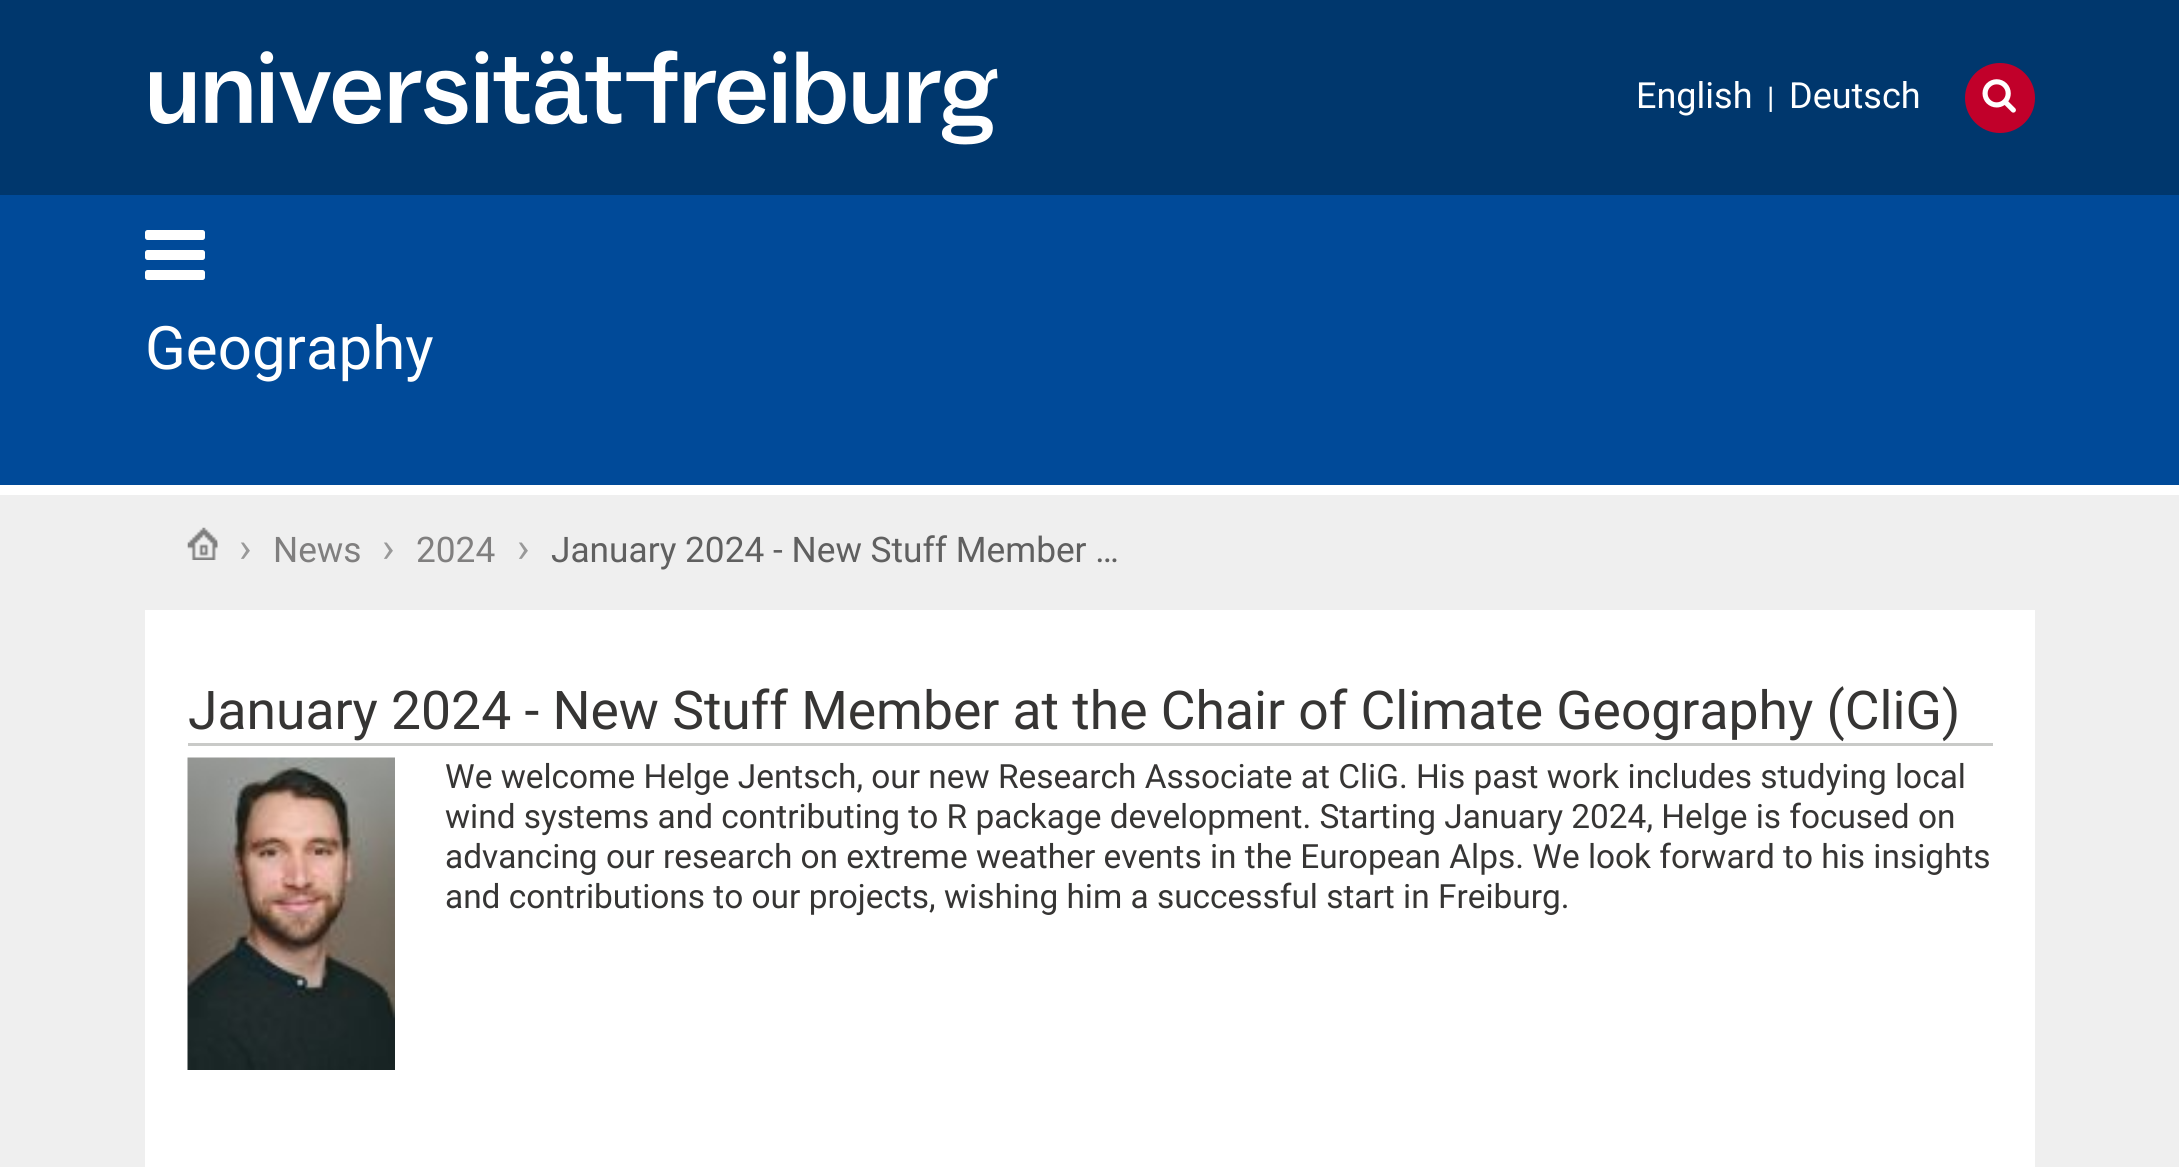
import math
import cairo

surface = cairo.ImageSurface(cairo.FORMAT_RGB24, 2179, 1167)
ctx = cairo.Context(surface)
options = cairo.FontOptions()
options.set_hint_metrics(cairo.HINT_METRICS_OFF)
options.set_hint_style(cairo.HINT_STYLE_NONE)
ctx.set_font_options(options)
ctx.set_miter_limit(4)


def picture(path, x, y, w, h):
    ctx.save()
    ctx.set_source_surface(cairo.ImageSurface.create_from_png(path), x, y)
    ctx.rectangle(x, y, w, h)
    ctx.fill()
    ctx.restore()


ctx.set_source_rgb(0.937, 0.937, 0.937)
ctx.paint()
ctx.set_source_rgb(0, 0.29, 0.6)
ctx.rectangle(0, 195, 2179, 290)
ctx.fill()
ctx.set_source_rgb(1, 1, 1)
ctx.rectangle(0, 485, 2179, 10)
ctx.fill()
ctx.set_source_rgb(0, 0.216, 0.427)
ctx.rectangle(0, 0, 2179, 195)
ctx.fill()
picture("img1.png", 150, 50, 848, 95)
ctx.select_font_face("Roboto")
ctx.set_font_size(36)
ctx.set_source_rgb(1, 1, 1)
ctx.move_to(1636, 108)
ctx.show_text("English")
ctx.set_font_size(30)
ctx.move_to(1767, 108)
ctx.show_text("|")
ctx.set_font_size(36)
ctx.move_to(1789, 108)
ctx.show_text("Deutsch")
ctx.set_source_rgb(0.757, 0, 0.165)
ctx.new_path()
ctx.arc(2000, 98, 35, 0, 2 * math.pi)
ctx.fill()
picture("img2.png", 1982, 79, 34, 34)
picture("img3.png", 145, 230, 60, 50)
ctx.set_font_size(60)
ctx.set_source_rgb(1, 1, 1)
ctx.move_to(145, 369)
ctx.show_text("Geography")
ctx.rectangle(145, 610, 1890, 557)
ctx.fill()
picture("img4.png", 187, 527, 31, 33)
ctx.set_font_size(42)
ctx.set_source_rgb(0.6, 0.6, 0.6)
ctx.move_to(239, 562)
ctx.show_text("›")
ctx.set_font_size(35.25)
ctx.set_source_rgb(0.502, 0.498, 0.498)
ctx.move_to(273, 562)
ctx.show_text("News")
ctx.set_font_size(42)
ctx.set_source_rgb(0.6, 0.6, 0.6)
ctx.move_to(382, 562)
ctx.show_text("›")
ctx.set_font_size(35.25)
ctx.set_source_rgb(0.502, 0.498, 0.498)
ctx.move_to(416, 562)
ctx.show_text("2024")
ctx.set_font_size(42)
ctx.set_source_rgb(0.6, 0.6, 0.6)
ctx.move_to(517, 562)
ctx.show_text("›")
ctx.set_font_size(35.25)
ctx.set_source_rgb(0.376, 0.376, 0.376)
ctx.move_to(551, 562)
ctx.show_text("January 2024 - New Stuff Member …")
ctx.set_source_rgb(0.788, 0.792, 0.784)
ctx.rectangle(188, 743, 1805, 3)
ctx.fill()
ctx.set_font_size(53.4)
ctx.set_source_rgb(0.212, 0.208, 0.204)
ctx.move_to(188, 729)
ctx.show_text("January 2024 - New Stuff Member at the Chair of Climate Geography (CliG)")
picture("img5.png", 187, 757, 208, 313)
ctx.set_font_size(33.4)
ctx.move_to(445, 788)
ctx.show_text("We welcome Helge Jentsch, our new Research Associate at CliG. His past work includes studying local")
ctx.move_to(445, 828)
ctx.show_text("wind systems and contributing to R package development. Starting January 2024, Helge is focused on")
ctx.move_to(445, 868)
ctx.show_text("advancing our research on extreme weather events in the European Alps. We look forward to his insights")
ctx.move_to(445, 908)
ctx.show_text("and contributions to our projects, wishing him a successful start in Freiburg.")
surface.write_to_png("page.png")
